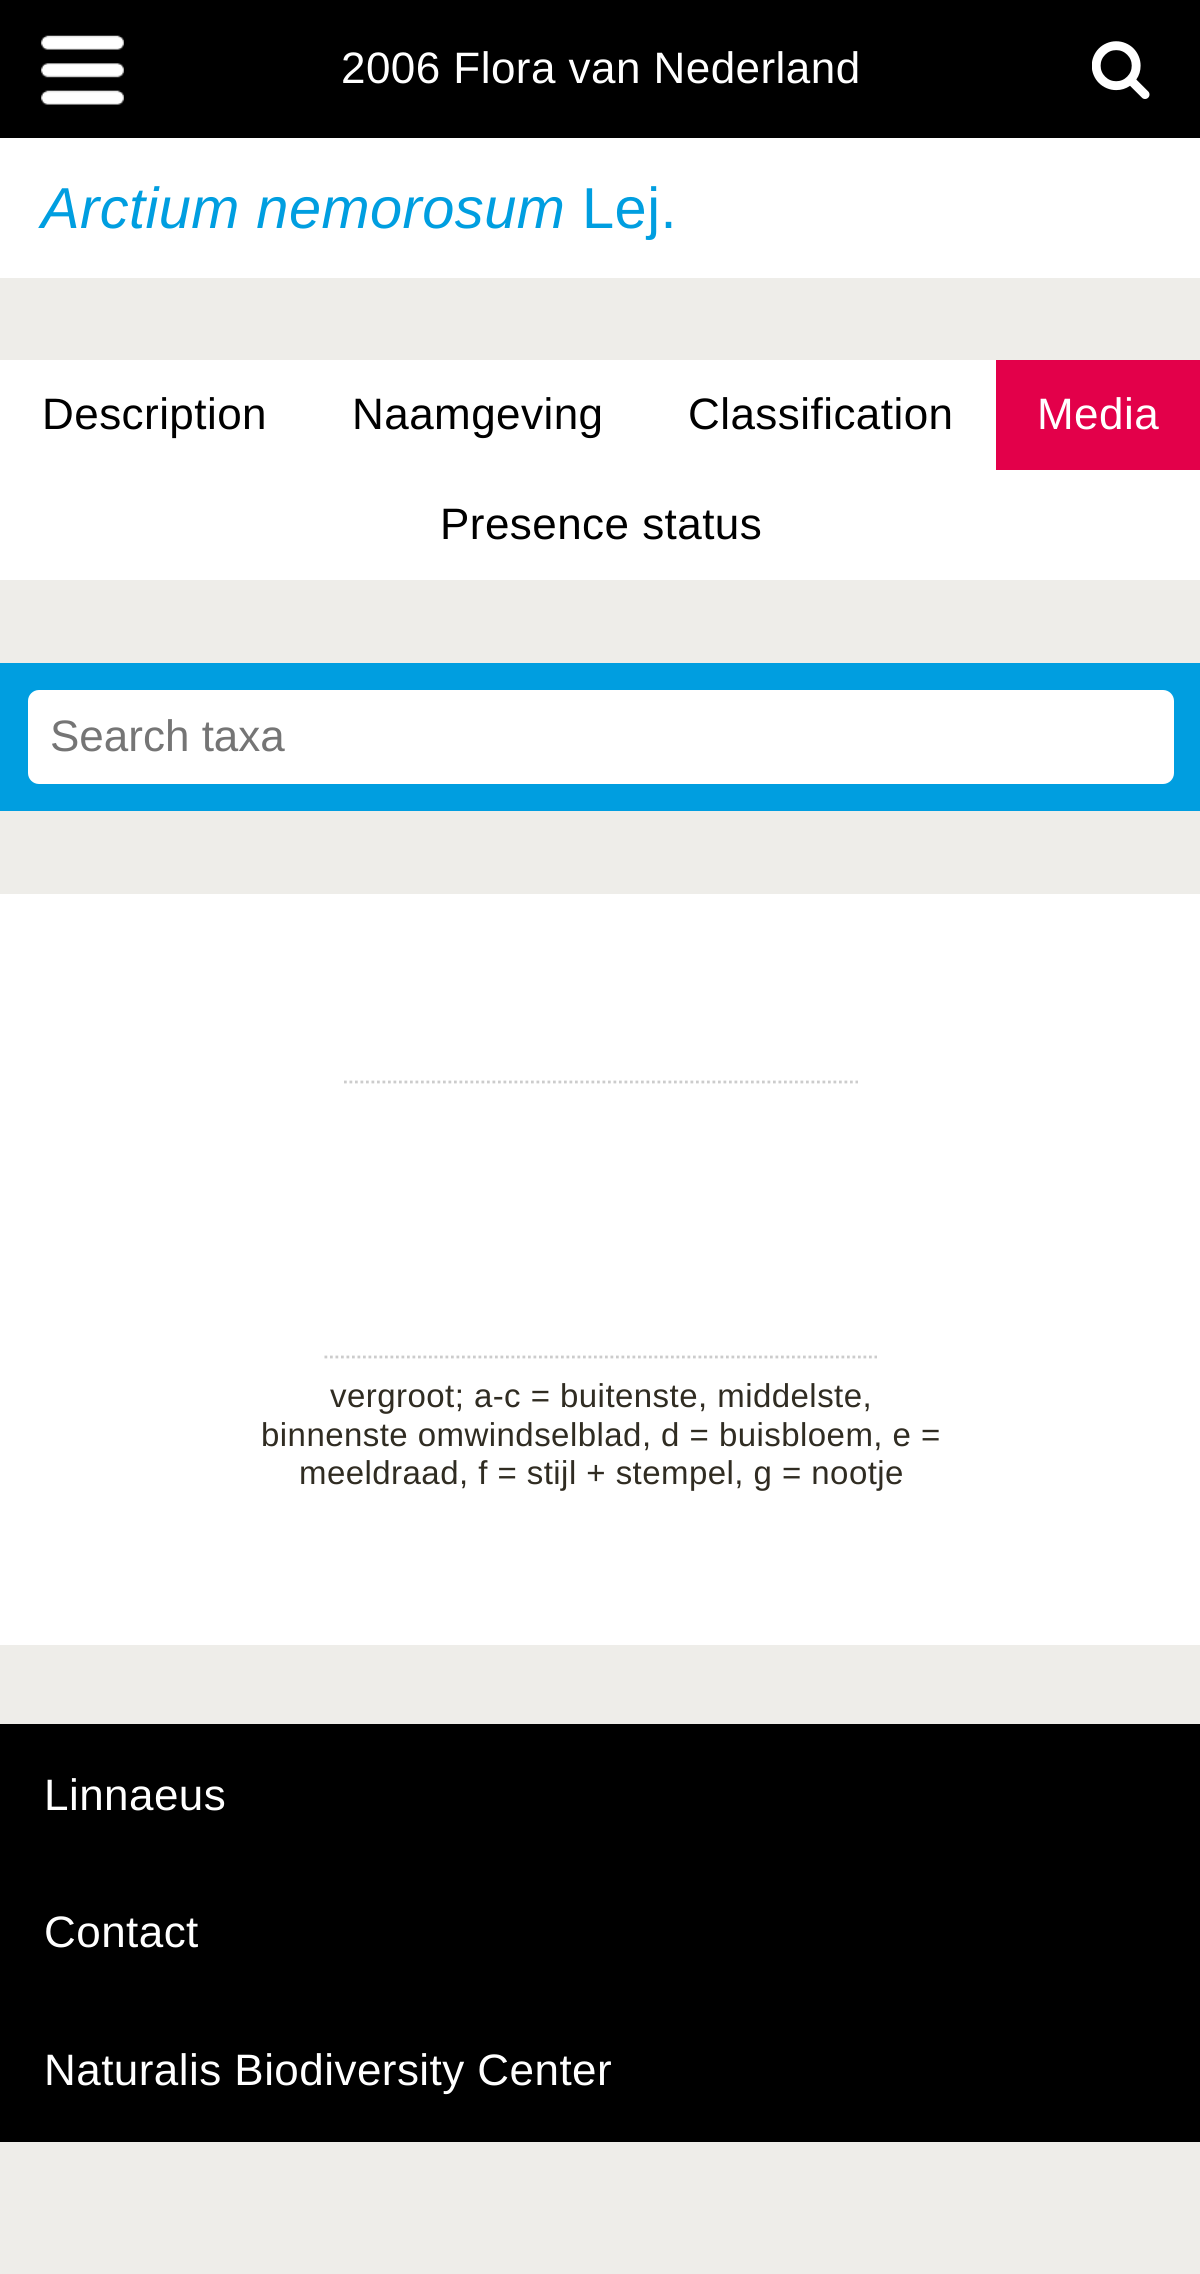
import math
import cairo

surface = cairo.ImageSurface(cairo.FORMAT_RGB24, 1200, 2274)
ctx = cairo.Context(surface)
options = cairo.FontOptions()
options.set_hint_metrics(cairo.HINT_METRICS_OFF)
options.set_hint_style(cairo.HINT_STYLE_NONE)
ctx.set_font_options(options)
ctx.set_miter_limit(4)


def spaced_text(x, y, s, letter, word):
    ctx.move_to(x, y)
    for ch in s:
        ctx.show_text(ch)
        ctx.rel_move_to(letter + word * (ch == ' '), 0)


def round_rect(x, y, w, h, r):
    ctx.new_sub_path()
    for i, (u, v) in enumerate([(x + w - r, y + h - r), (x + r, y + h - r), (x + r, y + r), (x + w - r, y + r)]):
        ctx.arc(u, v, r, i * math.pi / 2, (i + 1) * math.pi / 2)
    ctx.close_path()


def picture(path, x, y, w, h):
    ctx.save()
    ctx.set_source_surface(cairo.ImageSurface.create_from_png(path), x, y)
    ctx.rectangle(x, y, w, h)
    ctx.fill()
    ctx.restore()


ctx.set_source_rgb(0.933, 0.929, 0.914)
ctx.paint()
ctx.set_source_rgb(0, 0, 0)
ctx.rectangle(0, 0, 1200, 138)
ctx.fill()
picture("img1.png", 41, 35, 83, 70)
ctx.select_font_face("Liberation Sans")
ctx.set_font_size(44)
ctx.set_source_rgb(1, 1, 1)
spaced_text(341, 83, "2006 Flora van Nederland", 0.45, 0)
picture("img2.png", 1092, 41, 58, 58)
ctx.rectangle(0, 138, 1200, 140)
ctx.fill()
ctx.select_font_face("Liberation Sans", cairo.FONT_SLANT_ITALIC)
ctx.set_font_size(57.75)
ctx.set_source_rgb(0, 0.62, 0.878)
spaced_text(41, 228, "Arctium nemorosum", 0.45, 0)
ctx.select_font_face("Liberation Sans")
spaced_text(582, 228, "Lej.", 0.45, 0)
ctx.set_source_rgb(1, 1, 1)
ctx.rectangle(0, 360, 1200, 220)
ctx.fill()
ctx.set_font_size(44)
ctx.set_source_rgb(0, 0, 0)
spaced_text(42, 429, "Description", 0.45, 0)
spaced_text(352, 429, "Naamgeving", 0.45, 0)
spaced_text(688, 429, "Classification", 0.45, 0)
ctx.set_source_rgb(0.89, 0, 0.29)
ctx.rectangle(996, 360, 204, 110)
ctx.fill()
ctx.set_source_rgb(1, 1, 1)
spaced_text(1037, 429, "Media", 0.45, 0)
ctx.set_source_rgb(0, 0, 0)
spaced_text(440, 539, "Presence status", 0.45, 0)
ctx.set_source_rgb(0, 0.62, 0.878)
ctx.rectangle(0, 663, 1200, 148)
ctx.fill()
ctx.set_source_rgb(1, 1, 1)
round_rect(28, 690, 1146, 94, 11)
ctx.fill()
ctx.set_source_rgb(0.459, 0.459, 0.459)
ctx.move_to(50, 751)
ctx.show_text("Search taxa")
ctx.set_source_rgb(1, 1, 1)
ctx.rectangle(0, 894, 1200, 751)
ctx.fill()
ctx.new_path()
ctx.move_to(344, 1082)
ctx.line_to(858, 1082)
ctx.set_source_rgb(0.8, 0.8, 0.8)
ctx.set_line_width(2.8)
ctx.set_dash([2.75, 2.75])
ctx.stroke()
ctx.new_path()
ctx.move_to(324.5, 1357)
ctx.line_to(877, 1357)
ctx.stroke()
ctx.set_font_size(33)
ctx.set_source_rgb(0.188, 0.173, 0.133)
spaced_text(330, 1407, "vergroot; a-c = buitenste, middelste,", 0.45, 0)
spaced_text(261, 1446, "binnenste omwindselblad, d = buisbloem, e =", 0.45, 0)
spaced_text(299, 1484, "meeldraad, f = stijl + stempel, g = nootje", 0.45, 0)
ctx.set_source_rgb(0, 0, 0)
ctx.rectangle(0, 1724, 1200, 418)
ctx.fill()
ctx.set_font_size(44)
ctx.set_source_rgb(1, 1, 1)
spaced_text(44, 1810, "Linnaeus", 0.45, 0)
spaced_text(44, 1947, "Contact", 0.45, 0)
spaced_text(44, 2085, "Naturalis Biodiversity Center", 0.45, 0)
surface.write_to_png("page.png")
